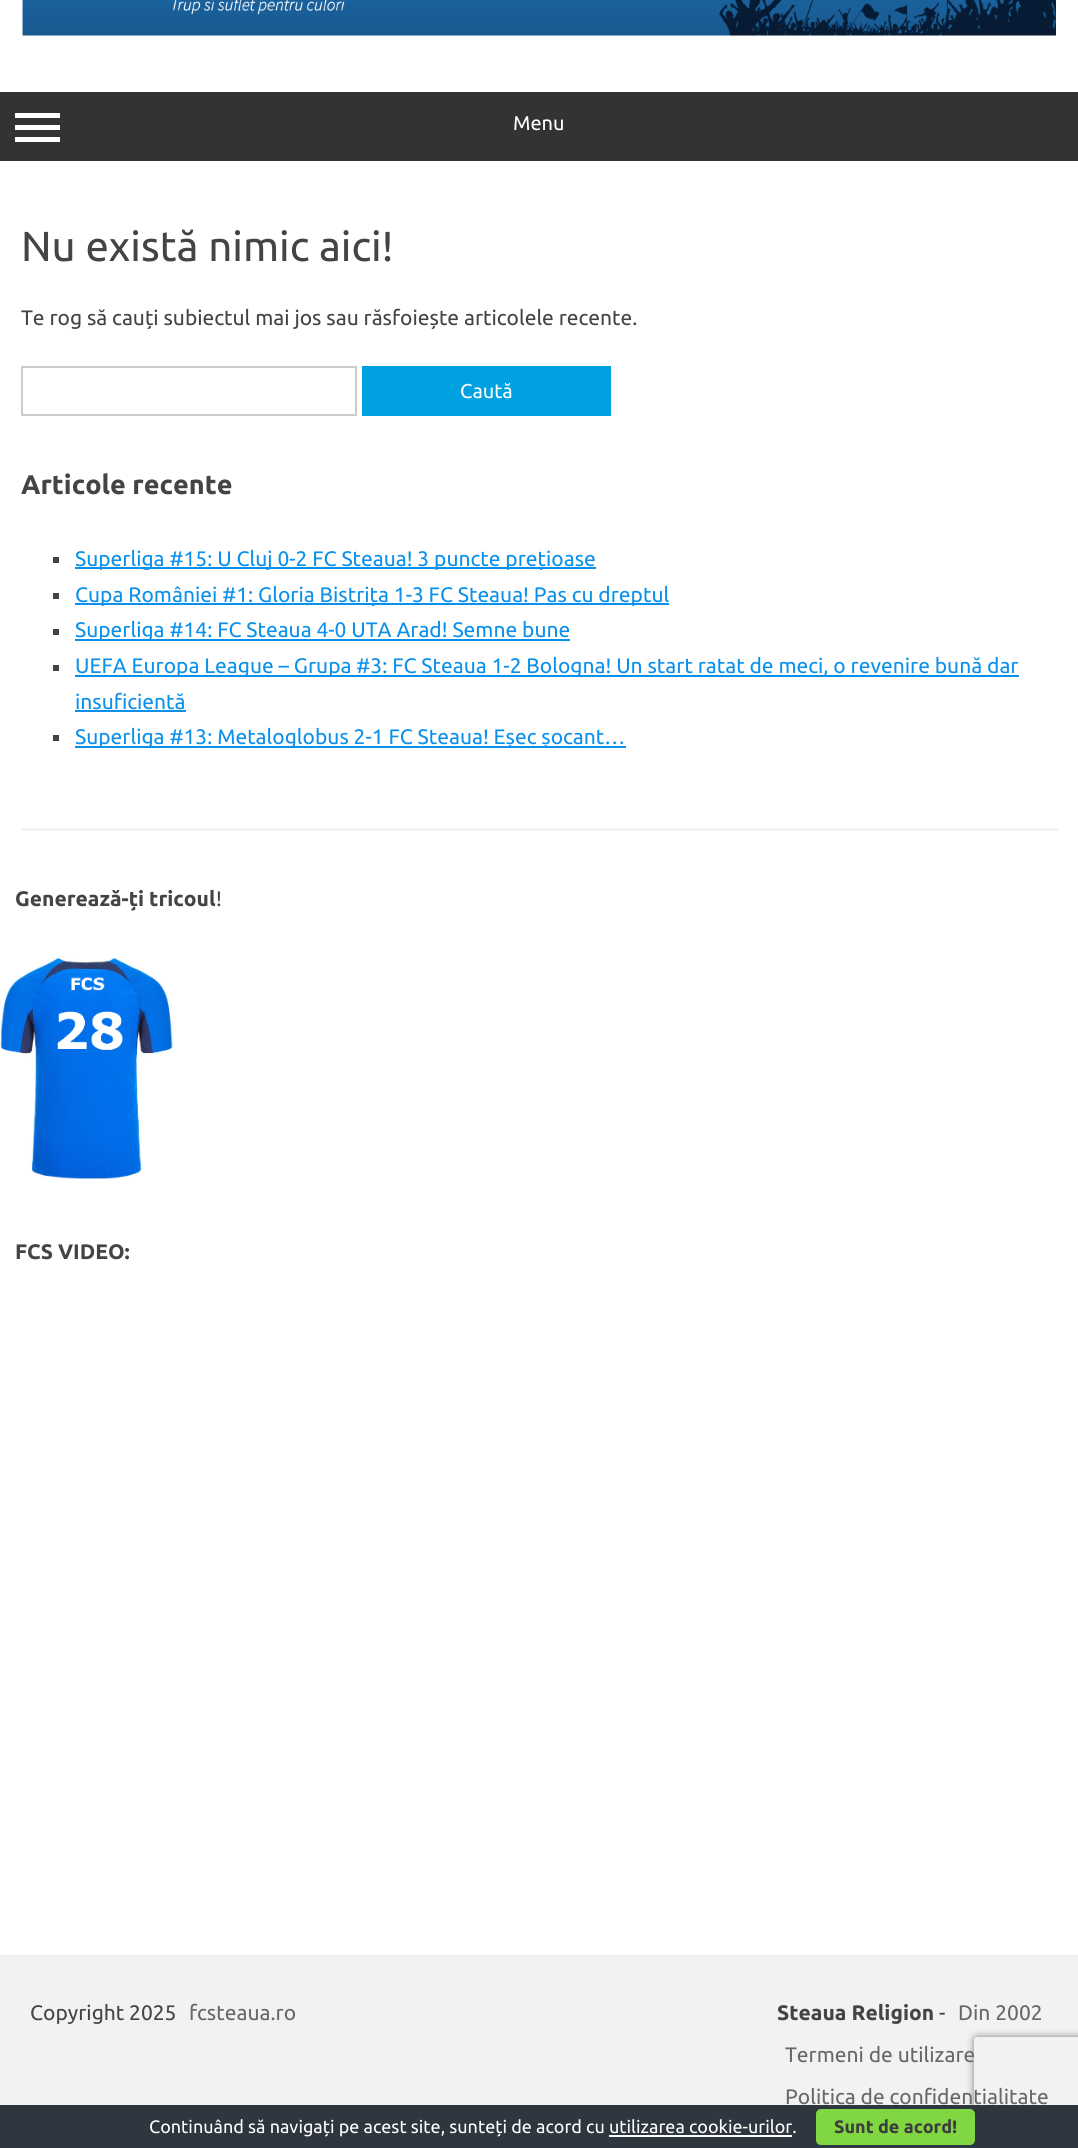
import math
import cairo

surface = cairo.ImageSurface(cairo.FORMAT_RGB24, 1078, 2148)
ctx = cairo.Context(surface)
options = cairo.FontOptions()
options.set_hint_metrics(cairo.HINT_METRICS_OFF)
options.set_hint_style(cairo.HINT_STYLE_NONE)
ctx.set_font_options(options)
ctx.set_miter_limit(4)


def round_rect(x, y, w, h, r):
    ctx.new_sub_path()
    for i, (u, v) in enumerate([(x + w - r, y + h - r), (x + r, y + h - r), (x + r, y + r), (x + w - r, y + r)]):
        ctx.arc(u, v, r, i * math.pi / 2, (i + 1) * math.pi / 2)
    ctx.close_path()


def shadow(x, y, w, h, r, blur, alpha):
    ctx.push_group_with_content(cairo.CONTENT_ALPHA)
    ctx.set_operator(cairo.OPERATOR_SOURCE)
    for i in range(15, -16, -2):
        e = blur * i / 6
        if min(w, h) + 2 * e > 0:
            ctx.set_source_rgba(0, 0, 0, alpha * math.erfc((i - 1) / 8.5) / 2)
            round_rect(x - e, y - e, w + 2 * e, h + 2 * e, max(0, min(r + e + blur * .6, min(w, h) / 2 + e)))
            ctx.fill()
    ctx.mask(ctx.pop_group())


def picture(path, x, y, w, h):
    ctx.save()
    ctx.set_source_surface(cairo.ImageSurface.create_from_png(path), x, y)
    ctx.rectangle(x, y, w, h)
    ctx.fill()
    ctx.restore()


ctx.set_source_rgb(1, 1, 1)
ctx.paint()
picture("img1.png", 22, 0, 1034, 36)
ctx.set_source_rgb(0.2, 0.2, 0.2)
ctx.rectangle(0, 92, 1078, 69)
ctx.fill()
ctx.set_source_rgb(1, 1, 1)
ctx.rectangle(15, 113, 45, 5)
ctx.fill()
ctx.rectangle(15, 125, 45, 5)
ctx.fill()
ctx.rectangle(15, 137, 45, 5)
ctx.fill()
ctx.select_font_face("Ubuntu")
ctx.set_font_size(20)
ctx.move_to(513, 130)
ctx.show_text("Menu")
ctx.set_source_rgb(0.953, 0.953, 0.953)
ctx.rectangle(21, 828, 1037, 3)
ctx.fill()
ctx.set_font_size(42)
ctx.set_source_rgb(0.267, 0.267, 0.267)
ctx.move_to(21, 261)
ctx.show_text("Nu există nimic aici!")
ctx.set_font_size(21)
ctx.move_to(21, 325)
ctx.show_text("Te rog să cauți subiectul mai jos sau răsfoiește articolele recente.")
ctx.rectangle(22, 367, 334, 48)
ctx.set_source_rgb(0.8, 0.8, 0.8)
ctx.stroke()
ctx.set_source_rgb(0, 0.631, 0.878)
ctx.rectangle(362, 366, 249, 50)
ctx.fill()
ctx.set_font_size(20)
ctx.set_source_rgb(1, 1, 1)
ctx.move_to(460, 398)
ctx.show_text("Caută")
ctx.select_font_face("Ubuntu", cairo.FONT_SLANT_NORMAL, cairo.FONT_WEIGHT_BOLD)
ctx.set_font_size(27)
ctx.set_source_rgb(0.267, 0.267, 0.267)
ctx.move_to(21, 494)
ctx.show_text("Articole recente")
ctx.rectangle(53, 557, 6, 6)
ctx.fill()
ctx.set_source_rgb(0.043, 0.569, 0.918)
ctx.rectangle(75, 567, 521, 2)
ctx.fill()
ctx.select_font_face("Ubuntu")
ctx.set_font_size(21)
ctx.move_to(75, 566)
ctx.show_text("Superliga #15: U Cluj 0-2 FC Steaua! 3 puncte prețioase")
ctx.set_source_rgb(0.267, 0.267, 0.267)
ctx.rectangle(53, 593, 6, 6)
ctx.fill()
ctx.set_source_rgb(0.043, 0.569, 0.918)
ctx.rectangle(75, 603, 594, 2)
ctx.fill()
ctx.move_to(75, 602)
ctx.show_text("Cupa României #1: Gloria Bistrița 1-3 FC Steaua! Pas cu dreptul")
ctx.set_source_rgb(0.267, 0.267, 0.267)
ctx.rectangle(53, 629, 6, 6)
ctx.fill()
ctx.set_source_rgb(0.043, 0.569, 0.918)
ctx.rectangle(75, 639, 495, 2)
ctx.fill()
ctx.move_to(75, 637)
ctx.show_text("Superliga #14: FC Steaua 4-0 UTA Arad! Semne bune")
ctx.set_source_rgb(0.267, 0.267, 0.267)
ctx.rectangle(53, 665, 6, 6)
ctx.fill()
ctx.set_source_rgb(0.043, 0.569, 0.918)
ctx.rectangle(75, 675, 944, 2)
ctx.fill()
ctx.move_to(75, 673)
ctx.show_text("UEFA Europa League – Grupa #3: FC Steaua 1-2 Bologna! Un start ratat de meci, o revenire bună dar")
ctx.move_to(75, 709)
ctx.show_text("insuficientă")
ctx.rectangle(75, 710, 111, 2)
ctx.fill()
ctx.set_source_rgb(0.267, 0.267, 0.267)
ctx.rectangle(53, 735, 6, 6)
ctx.fill()
ctx.set_source_rgb(0.043, 0.569, 0.918)
ctx.rectangle(75, 746, 551, 2)
ctx.fill()
ctx.move_to(75, 744)
ctx.show_text("Superliga #13: Metaloglobus 2-1 FC Steaua! Eșec șocant…")
ctx.select_font_face("Ubuntu", cairo.FONT_SLANT_NORMAL, cairo.FONT_WEIGHT_BOLD)
ctx.set_source_rgb(0.267, 0.267, 0.267)
ctx.move_to(15, 906)
ctx.show_text("Generează-ți tricoul")
ctx.select_font_face("Ubuntu")
ctx.move_to(216, 906)
ctx.show_text("!")
picture("img2.png", 0, 957, 174, 223)
ctx.select_font_face("Ubuntu", cairo.FONT_SLANT_NORMAL, cairo.FONT_WEIGHT_BOLD)
ctx.move_to(15, 1259)
ctx.show_text("FCS VIDEO:")
ctx.set_source_rgb(0.949, 0.949, 0.949)
ctx.rectangle(0, 1957, 1078, 148)
ctx.fill()
ctx.set_source_rgb(0.929, 0.929, 0.929)
ctx.rectangle(0, 1955, 1078, 2)
ctx.fill()
ctx.select_font_face("Ubuntu")
ctx.set_source_rgb(0.267, 0.267, 0.267)
ctx.move_to(30, 2020)
ctx.show_text("Copyright 2025")
ctx.set_source_rgb(0.408, 0.408, 0.408)
ctx.move_to(189, 2020)
ctx.show_text("fcsteaua.ro")
ctx.select_font_face("Ubuntu", cairo.FONT_SLANT_NORMAL, cairo.FONT_WEIGHT_BOLD)
ctx.set_source_rgb(0.267, 0.267, 0.267)
ctx.move_to(777, 2020)
ctx.show_text("Steaua Religion")
ctx.select_font_face("Ubuntu")
ctx.move_to(939, 2020)
ctx.show_text("-")
ctx.set_source_rgb(0.408, 0.408, 0.408)
ctx.move_to(958, 2020)
ctx.show_text("Din 2002")
ctx.move_to(785, 2062)
ctx.show_text("Termeni de utilizare")
ctx.move_to(785, 2104)
ctx.show_text("Politica de confidentialitate")
ctx.save()
ctx.set_fill_rule(cairo.FILL_RULE_EVEN_ODD)
ctx.new_path()
ctx.move_to(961, 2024)
ctx.line_to(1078, 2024)
ctx.line_to(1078, 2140)
ctx.line_to(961, 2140)
ctx.close_path()
ctx.move_to(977, 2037)
ctx.line_to(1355, 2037)
ctx.curve_to(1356.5, 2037, 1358, 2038.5, 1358, 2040)
ctx.line_to(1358, 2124)
ctx.curve_to(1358, 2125.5, 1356.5, 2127, 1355, 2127)
ctx.line_to(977, 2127)
ctx.curve_to(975.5, 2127, 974, 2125.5, 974, 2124)
ctx.line_to(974, 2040)
ctx.curve_to(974, 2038.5, 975.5, 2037, 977, 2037)
ctx.close_path()
ctx.clip()
ctx.set_source_rgb(0.502, 0.502, 0.502)
shadow(974, 2037, 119, 90, 3, 4, 1)
ctx.restore()
ctx.set_source_rgb(0.18, 0.212, 0.247)
ctx.rectangle(0, 2105, 1078, 43)
ctx.fill()
ctx.set_font_size(18)
ctx.set_source_rgb(1, 1, 1)
ctx.move_to(149, 2133)
ctx.show_text("Continuând să navigați pe acest site, sunteți de acord cu utilizarea cookie-urilor.")
ctx.set_source_rgb(0.506, 0.843, 0.259)
round_rect(816, 2109, 159, 36, 5)
ctx.fill()
ctx.select_font_face("Ubuntu", cairo.FONT_SLANT_NORMAL, cairo.FONT_WEIGHT_BOLD)
ctx.set_source_rgb(0.239, 0.239, 0.239)
ctx.move_to(834, 2133)
ctx.show_text("Sunt de acord!")
ctx.set_source_rgb(1, 1, 1)
ctx.rectangle(609, 2135, 183, 2)
ctx.fill()
surface.write_to_png("page.png")
